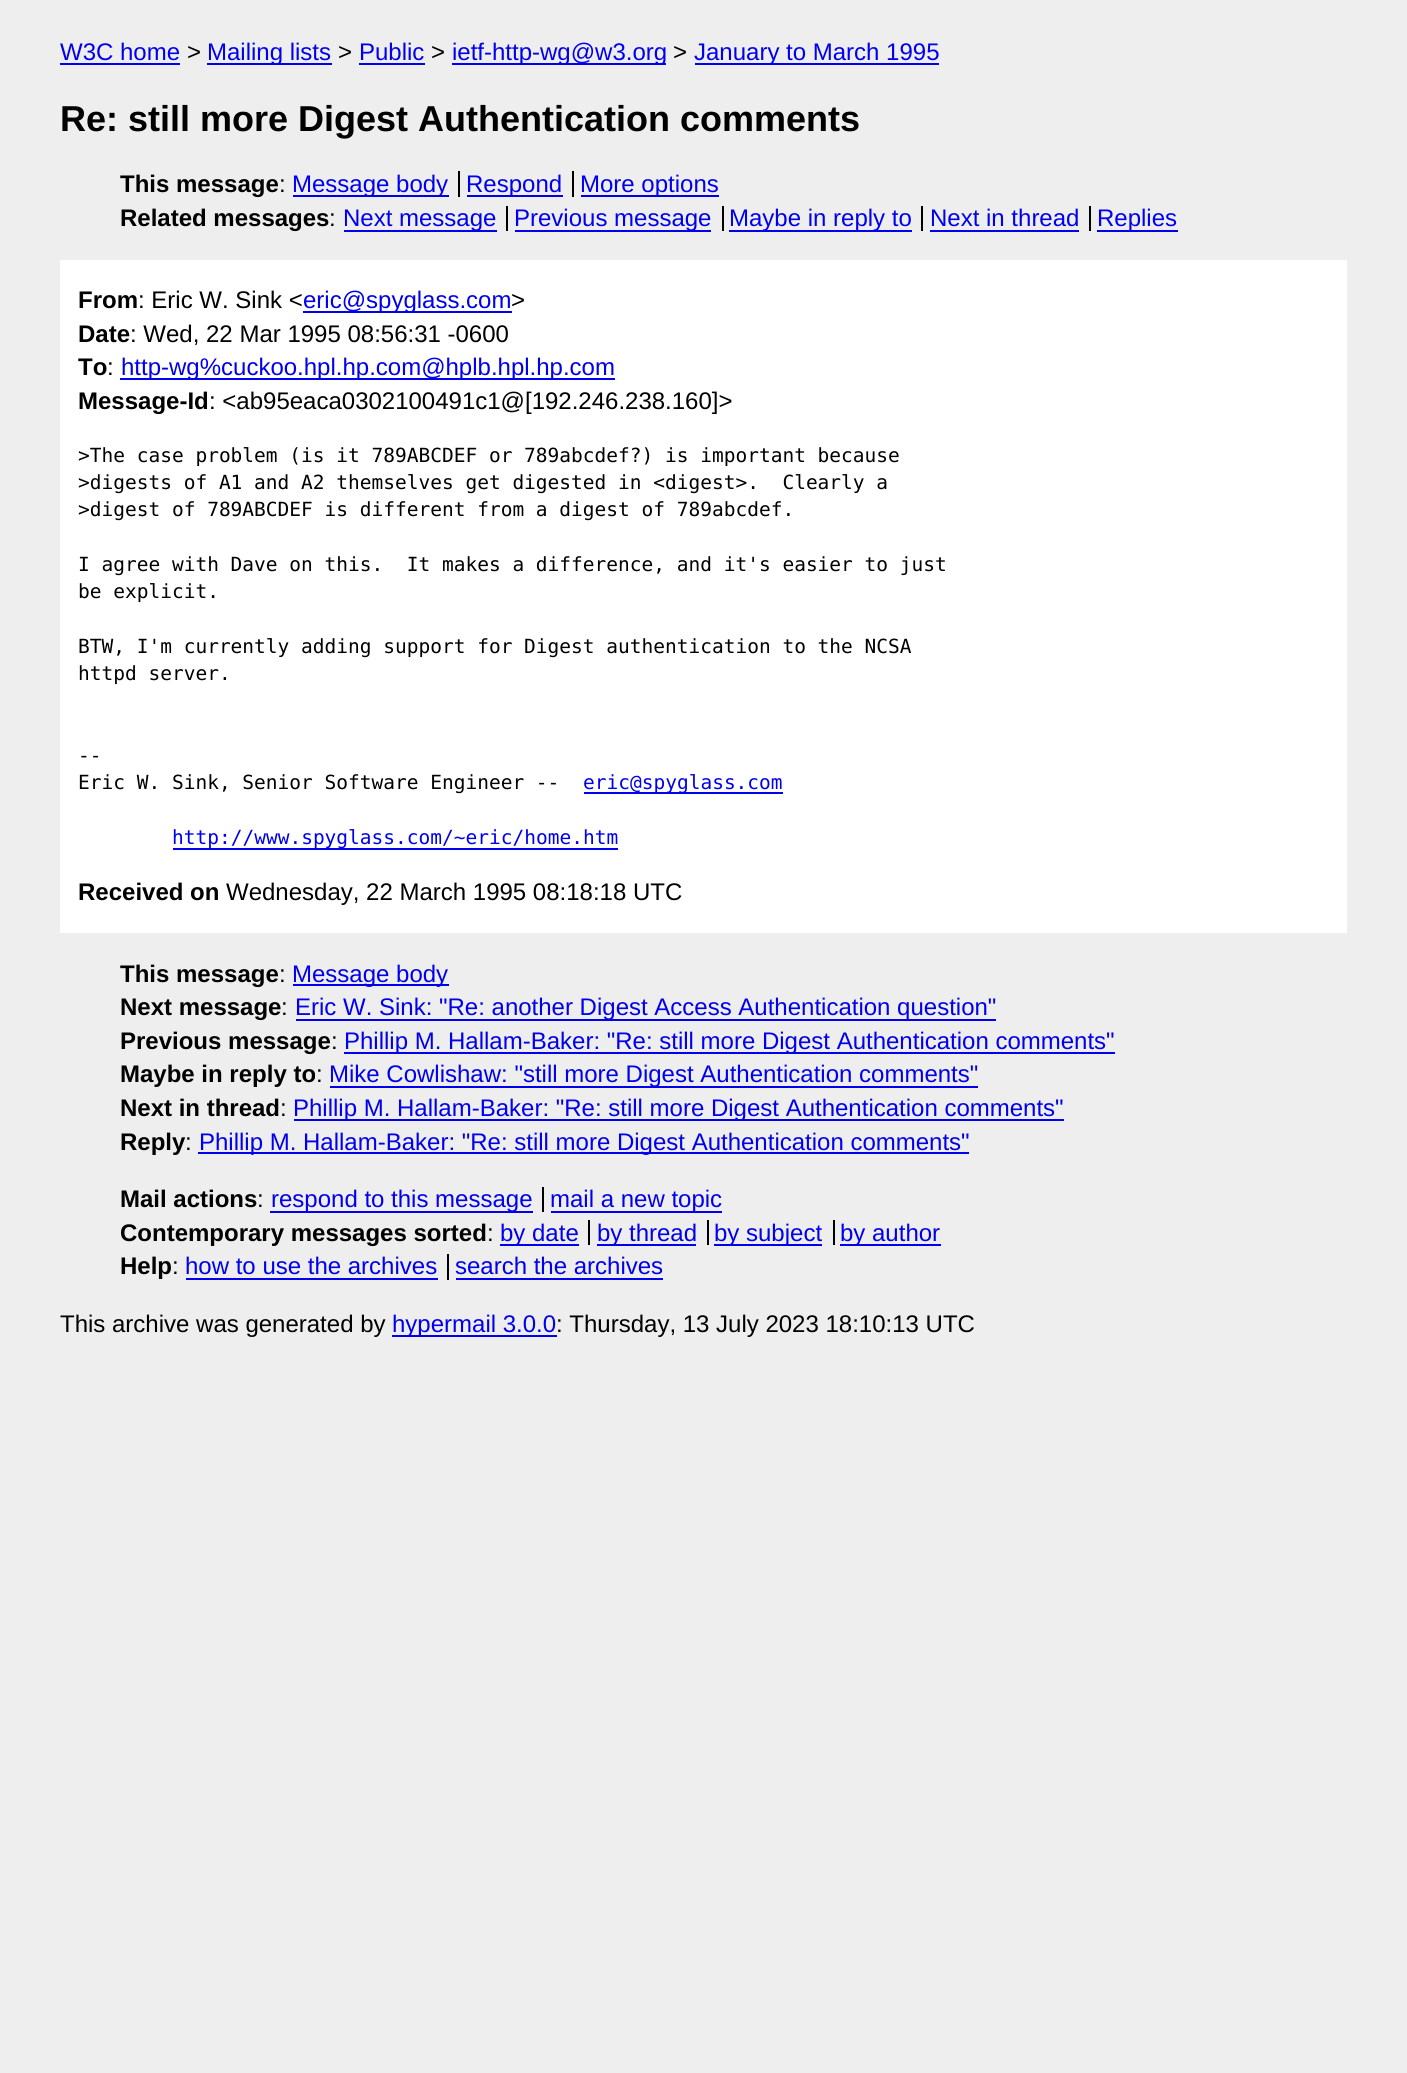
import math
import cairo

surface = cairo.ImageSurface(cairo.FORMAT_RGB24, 1407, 2073)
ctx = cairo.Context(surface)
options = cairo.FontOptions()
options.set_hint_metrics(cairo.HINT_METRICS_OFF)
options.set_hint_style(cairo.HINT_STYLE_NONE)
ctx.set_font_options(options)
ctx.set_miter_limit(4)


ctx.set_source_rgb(0.933, 0.933, 0.933)
ctx.paint()
ctx.select_font_face("Liberation Sans")
ctx.set_font_size(24)
ctx.set_source_rgb(0, 0, 0.933)
ctx.move_to(60, 60)
ctx.show_text("W3C home")
ctx.rectangle(60, 63, 120, 2)
ctx.fill()
ctx.set_source_rgb(0, 0, 0)
ctx.move_to(187, 60)
ctx.show_text(">")
ctx.set_source_rgb(0, 0, 0.933)
ctx.rectangle(207, 63, 125, 2)
ctx.fill()
ctx.move_to(207, 60)
ctx.show_text("Mailing lists")
ctx.set_source_rgb(0, 0, 0)
ctx.move_to(338, 60)
ctx.show_text(">")
ctx.set_source_rgb(0, 0, 0.933)
ctx.move_to(359, 60)
ctx.show_text("Public")
ctx.rectangle(359, 63, 66, 2)
ctx.fill()
ctx.set_source_rgb(0, 0, 0)
ctx.move_to(431, 60)
ctx.show_text(">")
ctx.set_source_rgb(0, 0, 0.933)
ctx.rectangle(452, 63, 214, 2)
ctx.fill()
ctx.move_to(452, 60)
ctx.show_text("ietf-http-wg@w3.org")
ctx.set_source_rgb(0, 0, 0)
ctx.move_to(673, 60)
ctx.show_text(">")
ctx.set_source_rgb(0, 0, 0.933)
ctx.rectangle(695, 63, 244, 2)
ctx.fill()
ctx.move_to(694, 60)
ctx.show_text("January to March 1995")
ctx.select_font_face("Liberation Sans", cairo.FONT_SLANT_NORMAL, cairo.FONT_WEIGHT_BOLD)
ctx.set_font_size(36)
ctx.set_source_rgb(0, 0, 0)
ctx.move_to(60, 131)
ctx.show_text("Re: still more Digest Authentication comments")
ctx.set_font_size(24)
ctx.move_to(120, 192)
ctx.show_text("This message")
ctx.select_font_face("Liberation Sans")
ctx.move_to(279, 192)
ctx.show_text(":")
ctx.set_source_rgb(0, 0, 0.933)
ctx.rectangle(293, 195, 156, 2)
ctx.fill()
ctx.move_to(292, 192)
ctx.show_text("Message body")
ctx.rectangle(467, 195, 96, 2)
ctx.fill()
ctx.move_to(466, 192)
ctx.show_text("Respond")
ctx.set_source_rgb(0, 0, 0)
ctx.rectangle(458, 171, 2, 26)
ctx.fill()
ctx.set_source_rgb(0, 0, 0.933)
ctx.rectangle(581, 195, 138, 2)
ctx.fill()
ctx.move_to(580, 192)
ctx.show_text("More options")
ctx.set_source_rgb(0, 0, 0)
ctx.rectangle(572, 171, 2, 26)
ctx.fill()
ctx.select_font_face("Liberation Sans", cairo.FONT_SLANT_NORMAL, cairo.FONT_WEIGHT_BOLD)
ctx.move_to(120, 226)
ctx.show_text("Related messages")
ctx.select_font_face("Liberation Sans")
ctx.move_to(329, 226)
ctx.show_text(":")
ctx.set_source_rgb(0, 0, 0.933)
ctx.rectangle(344, 230, 153, 2)
ctx.fill()
ctx.move_to(343, 226)
ctx.show_text("Next message")
ctx.rectangle(515, 230, 196, 2)
ctx.fill()
ctx.move_to(514, 226)
ctx.show_text("Previous message")
ctx.set_source_rgb(0, 0, 0)
ctx.rectangle(506, 206, 2, 25)
ctx.fill()
ctx.set_source_rgb(0, 0, 0.933)
ctx.rectangle(729, 230, 183, 2)
ctx.fill()
ctx.move_to(729, 226)
ctx.show_text("Maybe in reply to")
ctx.set_source_rgb(0, 0, 0)
ctx.rectangle(722, 206, 2, 25)
ctx.fill()
ctx.set_source_rgb(0, 0, 0.933)
ctx.move_to(930, 226)
ctx.show_text("Next in thread")
ctx.set_source_rgb(0, 0, 0)
ctx.rectangle(921, 206, 2, 25)
ctx.fill()
ctx.set_source_rgb(0, 0, 0.933)
ctx.rectangle(930, 230, 149, 2)
ctx.fill()
ctx.rectangle(1097, 230, 81, 2)
ctx.fill()
ctx.move_to(1097, 226)
ctx.show_text("Replies")
ctx.set_source_rgb(0, 0, 0)
ctx.rectangle(1089, 206, 2, 25)
ctx.fill()
ctx.set_source_rgb(1, 1, 1)
ctx.rectangle(60, 260, 1287, 673)
ctx.fill()
ctx.select_font_face("Liberation Sans", cairo.FONT_SLANT_NORMAL, cairo.FONT_WEIGHT_BOLD)
ctx.set_source_rgb(0, 0, 0)
ctx.move_to(78, 308)
ctx.show_text("From")
ctx.select_font_face("Liberation Sans")
ctx.move_to(138, 308)
ctx.show_text(": Eric W. Sink <")
ctx.set_source_rgb(0, 0, 0.933)
ctx.rectangle(303, 311, 209, 2)
ctx.fill()
ctx.move_to(303, 308)
ctx.show_text("eric@spyglass.com")
ctx.set_source_rgb(0, 0, 0)
ctx.move_to(511, 308)
ctx.show_text(">")
ctx.select_font_face("Liberation Sans", cairo.FONT_SLANT_NORMAL, cairo.FONT_WEIGHT_BOLD)
ctx.move_to(78, 342)
ctx.show_text("Date")
ctx.select_font_face("Liberation Sans")
ctx.move_to(130, 342)
ctx.show_text(": Wed, 22 Mar 1995 08:56:31 -0600")
ctx.select_font_face("Liberation Sans", cairo.FONT_SLANT_NORMAL, cairo.FONT_WEIGHT_BOLD)
ctx.move_to(78, 375)
ctx.show_text("To")
ctx.select_font_face("Liberation Sans")
ctx.move_to(107, 375)
ctx.show_text(":")
ctx.set_source_rgb(0, 0, 0.933)
ctx.rectangle(120, 378, 495, 2)
ctx.fill()
ctx.move_to(121, 375)
ctx.show_text("http-wg%cuckoo.hpl.hp.com@hplb.hpl.hp.com")
ctx.select_font_face("Liberation Sans", cairo.FONT_SLANT_NORMAL, cairo.FONT_WEIGHT_BOLD)
ctx.set_source_rgb(0, 0, 0)
ctx.move_to(78, 409)
ctx.show_text("Message-Id")
ctx.select_font_face("Liberation Sans")
ctx.move_to(209, 409)
ctx.show_text(": <ab95eaca0302100491c1@[192.246.238.160]>")
ctx.select_font_face("DejaVu Sans Mono")
ctx.set_font_size(19.5)
ctx.move_to(78, 462)
ctx.show_text(">The case problem (is it 789ABCDEF or 789abcdef?) is important because")
ctx.move_to(78, 489)
ctx.show_text(">digests of A1 and A2 themselves get digested in <digest>.  Clearly a")
ctx.move_to(78, 516)
ctx.show_text(">digest of 789ABCDEF is different from a digest of 789abcdef.")
ctx.move_to(78, 571)
ctx.show_text("I agree with Dave on this.  It makes a difference, and it's easier to just")
ctx.move_to(78, 598)
ctx.show_text("be explicit.")
ctx.move_to(78, 653)
ctx.show_text("BTW, I'm currently adding support for Digest authentication to the NCSA")
ctx.move_to(78, 680)
ctx.show_text("httpd server.")
ctx.move_to(78, 762)
ctx.show_text("--")
ctx.move_to(78, 789)
ctx.show_text("Eric W. Sink, Senior Software Engineer --")
ctx.set_source_rgb(0, 0, 0.933)
ctx.rectangle(584, 792, 199, 2)
ctx.fill()
ctx.move_to(583, 789)
ctx.show_text("eric@spyglass.com")
ctx.rectangle(173, 848, 445, 2)
ctx.fill()
ctx.move_to(172, 844)
ctx.show_text("http://www.spyglass.com/~eric/home.htm")
ctx.select_font_face("Liberation Sans", cairo.FONT_SLANT_NORMAL, cairo.FONT_WEIGHT_BOLD)
ctx.set_font_size(24)
ctx.set_source_rgb(0, 0, 0)
ctx.move_to(78, 900)
ctx.show_text("Received on")
ctx.select_font_face("Liberation Sans")
ctx.move_to(226, 900)
ctx.show_text("Wednesday, 22 March 1995 08:18:18 UTC")
ctx.select_font_face("Liberation Sans", cairo.FONT_SLANT_NORMAL, cairo.FONT_WEIGHT_BOLD)
ctx.move_to(120, 982)
ctx.show_text("This message")
ctx.select_font_face("Liberation Sans")
ctx.move_to(279, 982)
ctx.show_text(":")
ctx.set_source_rgb(0, 0, 0.933)
ctx.rectangle(293, 984, 156, 2)
ctx.fill()
ctx.move_to(292, 982)
ctx.show_text("Message body")
ctx.select_font_face("Liberation Sans", cairo.FONT_SLANT_NORMAL, cairo.FONT_WEIGHT_BOLD)
ctx.set_source_rgb(0, 0, 0)
ctx.move_to(120, 1015)
ctx.show_text("Next message")
ctx.select_font_face("Liberation Sans")
ctx.move_to(281, 1015)
ctx.show_text(":")
ctx.set_source_rgb(0, 0, 0.933)
ctx.rectangle(296, 1019, 700, 2)
ctx.fill()
ctx.move_to(295, 1015)
ctx.show_text("Eric W. Sink: \"Re: another Digest Access Authentication question\"")
ctx.select_font_face("Liberation Sans", cairo.FONT_SLANT_NORMAL, cairo.FONT_WEIGHT_BOLD)
ctx.set_source_rgb(0, 0, 0)
ctx.move_to(120, 1049)
ctx.show_text("Previous message")
ctx.select_font_face("Liberation Sans")
ctx.move_to(331, 1049)
ctx.show_text(":")
ctx.set_source_rgb(0, 0, 0.933)
ctx.rectangle(344, 1052, 771, 2)
ctx.fill()
ctx.move_to(344, 1049)
ctx.show_text("Phillip M. Hallam-Baker: \"Re: still more Digest Authentication comments\"")
ctx.select_font_face("Liberation Sans", cairo.FONT_SLANT_NORMAL, cairo.FONT_WEIGHT_BOLD)
ctx.set_source_rgb(0, 0, 0)
ctx.move_to(120, 1082)
ctx.show_text("Maybe in reply to")
ctx.select_font_face("Liberation Sans")
ctx.move_to(316, 1082)
ctx.show_text(":")
ctx.set_source_rgb(0, 0, 0.933)
ctx.rectangle(330, 1086, 648, 2)
ctx.fill()
ctx.move_to(329, 1082)
ctx.show_text("Mike Cowlishaw: \"still more Digest Authentication comments\"")
ctx.select_font_face("Liberation Sans", cairo.FONT_SLANT_NORMAL, cairo.FONT_WEIGHT_BOLD)
ctx.set_source_rgb(0, 0, 0)
ctx.move_to(120, 1116)
ctx.show_text("Next in thread")
ctx.select_font_face("Liberation Sans")
ctx.move_to(280, 1116)
ctx.show_text(":")
ctx.set_source_rgb(0, 0, 0.933)
ctx.rectangle(294, 1119, 770, 2)
ctx.fill()
ctx.move_to(293, 1116)
ctx.show_text("Phillip M. Hallam-Baker: \"Re: still more Digest Authentication comments\"")
ctx.select_font_face("Liberation Sans", cairo.FONT_SLANT_NORMAL, cairo.FONT_WEIGHT_BOLD)
ctx.set_source_rgb(0, 0, 0)
ctx.move_to(120, 1150)
ctx.show_text("Reply")
ctx.select_font_face("Liberation Sans")
ctx.move_to(185, 1150)
ctx.show_text(":")
ctx.set_source_rgb(0, 0, 0.933)
ctx.rectangle(198, 1152, 771, 2)
ctx.fill()
ctx.move_to(199, 1150)
ctx.show_text("Phillip M. Hallam-Baker: \"Re: still more Digest Authentication comments\"")
ctx.select_font_face("Liberation Sans", cairo.FONT_SLANT_NORMAL, cairo.FONT_WEIGHT_BOLD)
ctx.set_source_rgb(0, 0, 0)
ctx.move_to(120, 1207)
ctx.show_text("Mail actions")
ctx.select_font_face("Liberation Sans")
ctx.move_to(257, 1207)
ctx.show_text(":")
ctx.set_source_rgb(0, 0, 0.933)
ctx.rectangle(270, 1211, 263, 2)
ctx.fill()
ctx.move_to(271, 1207)
ctx.show_text("respond to this message")
ctx.rectangle(551, 1211, 171, 2)
ctx.fill()
ctx.move_to(550, 1207)
ctx.show_text("mail a new topic")
ctx.set_source_rgb(0, 0, 0)
ctx.rectangle(542, 1187, 2, 25)
ctx.fill()
ctx.select_font_face("Liberation Sans", cairo.FONT_SLANT_NORMAL, cairo.FONT_WEIGHT_BOLD)
ctx.move_to(120, 1241)
ctx.show_text("Contemporary messages sorted")
ctx.select_font_face("Liberation Sans")
ctx.move_to(487, 1241)
ctx.show_text(":")
ctx.set_source_rgb(0, 0, 0.933)
ctx.rectangle(500, 1244, 79, 2)
ctx.fill()
ctx.move_to(500, 1241)
ctx.show_text("by date")
ctx.rectangle(597, 1244, 99, 2)
ctx.fill()
ctx.move_to(597, 1241)
ctx.show_text("by thread")
ctx.set_source_rgb(0, 0, 0)
ctx.rectangle(588, 1220, 2, 25)
ctx.fill()
ctx.set_source_rgb(0, 0, 0.933)
ctx.rectangle(714, 1244, 108, 2)
ctx.fill()
ctx.move_to(714, 1241)
ctx.show_text("by subject")
ctx.set_source_rgb(0, 0, 0)
ctx.rectangle(707, 1220, 2, 25)
ctx.fill()
ctx.set_source_rgb(0, 0, 0.933)
ctx.rectangle(840, 1244, 101, 2)
ctx.fill()
ctx.move_to(840, 1241)
ctx.show_text("by author")
ctx.set_source_rgb(0, 0, 0)
ctx.rectangle(833, 1220, 2, 25)
ctx.fill()
ctx.select_font_face("Liberation Sans", cairo.FONT_SLANT_NORMAL, cairo.FONT_WEIGHT_BOLD)
ctx.move_to(120, 1274)
ctx.show_text("Help")
ctx.select_font_face("Liberation Sans")
ctx.move_to(172, 1274)
ctx.show_text(":")
ctx.set_source_rgb(0, 0, 0.933)
ctx.move_to(185, 1274)
ctx.show_text("how to use the archives")
ctx.rectangle(186, 1278, 252, 2)
ctx.fill()
ctx.move_to(455, 1274)
ctx.show_text("search the archives")
ctx.set_source_rgb(0, 0, 0)
ctx.rectangle(447, 1254, 2, 26)
ctx.fill()
ctx.set_source_rgb(0, 0, 0.933)
ctx.rectangle(456, 1278, 207, 2)
ctx.fill()
ctx.set_source_rgb(0, 0, 0)
ctx.move_to(60, 1332)
ctx.show_text("This archive was generated by")
ctx.set_source_rgb(0, 0, 0.933)
ctx.rectangle(392, 1335, 165, 2)
ctx.fill()
ctx.move_to(392, 1332)
ctx.show_text("hypermail 3.0.0")
ctx.set_source_rgb(0, 0, 0)
ctx.move_to(556, 1332)
ctx.show_text(": Thursday, 13 July 2023 18:10:13 UTC")
surface.write_to_png("page.png")
